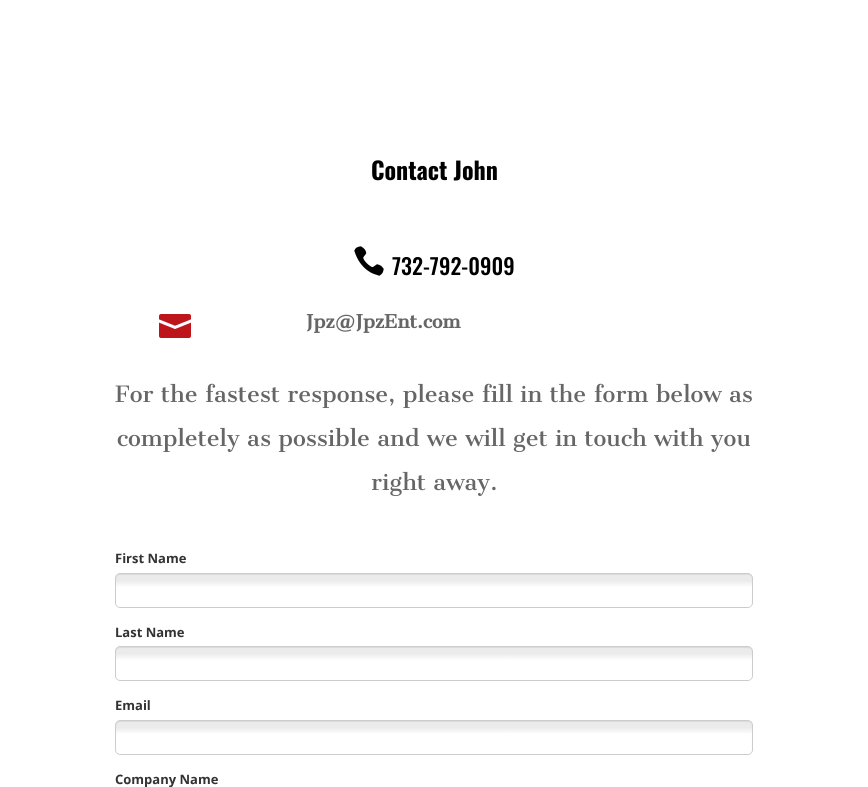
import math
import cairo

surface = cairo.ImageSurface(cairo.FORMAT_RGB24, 868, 787)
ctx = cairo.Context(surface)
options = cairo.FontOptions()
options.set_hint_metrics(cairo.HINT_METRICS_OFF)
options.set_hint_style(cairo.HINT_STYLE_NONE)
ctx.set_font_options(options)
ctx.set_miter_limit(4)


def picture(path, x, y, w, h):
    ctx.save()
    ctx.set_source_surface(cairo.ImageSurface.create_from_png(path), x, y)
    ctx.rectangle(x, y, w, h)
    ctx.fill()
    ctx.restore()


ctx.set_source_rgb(1, 1, 1)
ctx.paint()
ctx.select_font_face("Oswald", cairo.FONT_SLANT_NORMAL, cairo.FONT_WEIGHT_BOLD)
ctx.set_font_size(24)
ctx.set_source_rgb(0, 0, 0)
ctx.move_to(371, 180)
ctx.show_text("Contact John")
picture("img1.png", 354, 246, 30, 30)
ctx.select_font_face("Oswald Medium")
ctx.set_font_size(22)
ctx.move_to(392, 275)
ctx.show_text("732-792-0909")
picture("img2.png", 159, 314, 32, 24)
ctx.select_font_face("Cantata One", cairo.FONT_SLANT_NORMAL, cairo.FONT_WEIGHT_BOLD)
ctx.set_font_size(18)
ctx.set_source_rgb(0.4, 0.4, 0.4)
ctx.move_to(306, 328)
ctx.show_text("Jpz@JpzEnt.com")
ctx.select_font_face("Cantata One")
ctx.set_font_size(22)
ctx.move_to(115, 402)
ctx.show_text("For the fastest response, please fill in the form below as")
ctx.move_to(117, 446)
ctx.show_text("completely as possible and we will get in touch with you")
ctx.move_to(371, 490)
ctx.show_text("right away.")
picture("img3.png", 115, 553, 638, 234)
surface.write_to_png("page.png")
